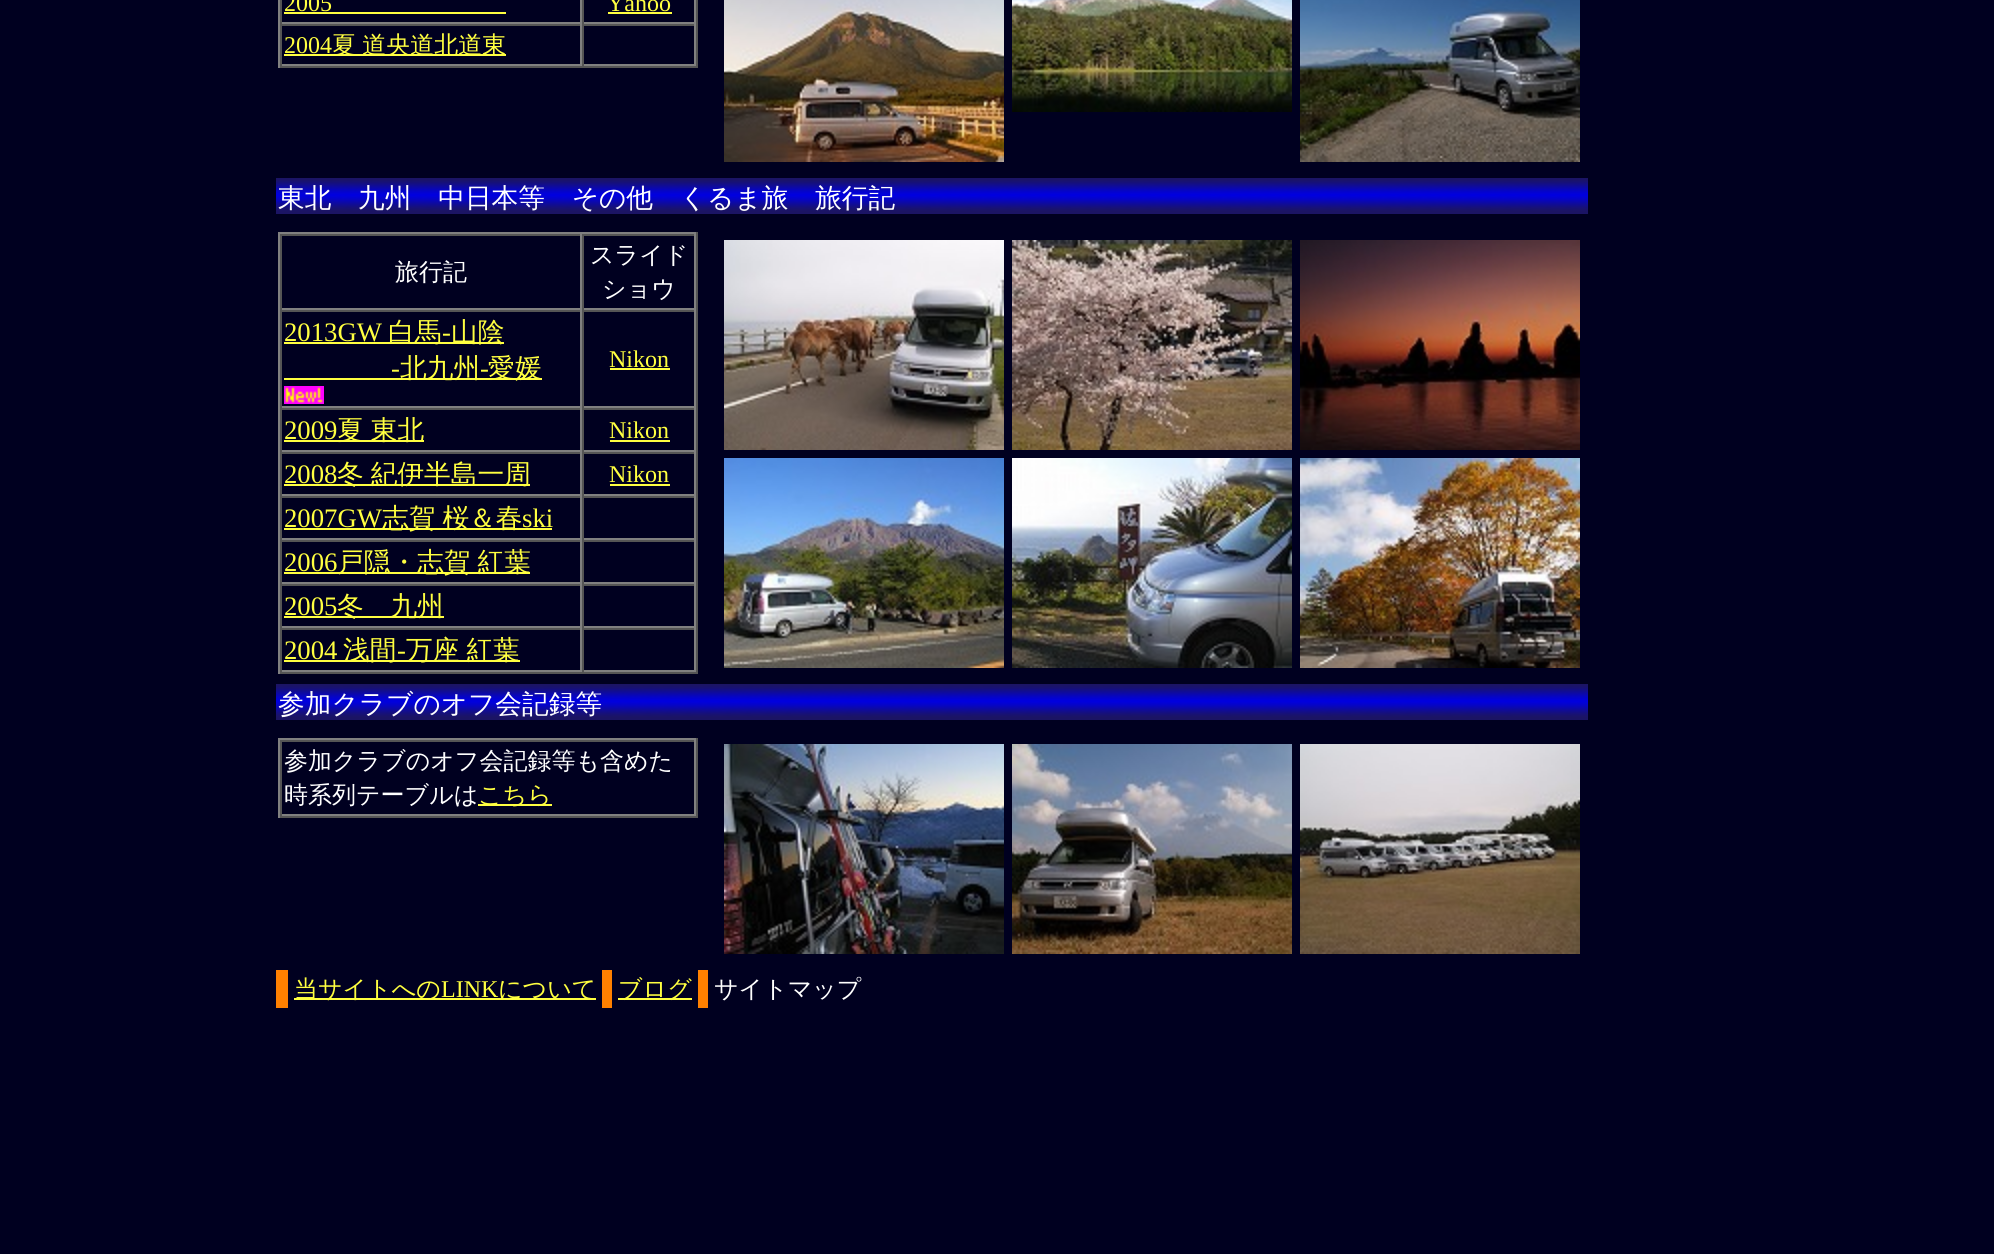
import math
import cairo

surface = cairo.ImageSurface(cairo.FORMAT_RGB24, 1994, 1254)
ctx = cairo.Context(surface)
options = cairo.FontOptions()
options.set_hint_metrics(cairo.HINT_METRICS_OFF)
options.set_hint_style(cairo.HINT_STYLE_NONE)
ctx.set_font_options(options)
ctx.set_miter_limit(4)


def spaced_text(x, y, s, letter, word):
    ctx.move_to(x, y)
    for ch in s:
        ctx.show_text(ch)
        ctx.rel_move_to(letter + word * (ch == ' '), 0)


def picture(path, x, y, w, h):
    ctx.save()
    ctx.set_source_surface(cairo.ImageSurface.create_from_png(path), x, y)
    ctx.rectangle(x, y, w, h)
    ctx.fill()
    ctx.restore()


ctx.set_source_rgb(0, 0, 0.125)
ctx.paint()
ctx.set_source_rgb(0.333, 0.333, 0.333)
ctx.rectangle(696, 0, 2, 68)
ctx.fill()
ctx.rectangle(278, 66, 420, 2)
ctx.fill()
ctx.set_source_rgb(0.502, 0.502, 0.502)
ctx.rectangle(278, 0, 2, 68)
ctx.fill()
ctx.rectangle(580, 0, 2, 24)
ctx.fill()
ctx.rectangle(280, 22, 302, 2)
ctx.fill()
ctx.set_source_rgb(0.333, 0.333, 0.333)
ctx.rectangle(280, 0, 2, 24)
ctx.fill()
ctx.select_font_face("Liberation Serif")
ctx.set_font_size(24)
ctx.set_source_rgb(1, 1, 0.251)
ctx.move_to(284, 11)
ctx.show_text("2005")
ctx.rectangle(284, 12, 222, 2)
ctx.fill()
ctx.set_source_rgb(0.502, 0.502, 0.502)
ctx.rectangle(694, 0, 2, 24)
ctx.fill()
ctx.rectangle(582, 22, 114, 2)
ctx.fill()
ctx.set_source_rgb(0.333, 0.333, 0.333)
ctx.rectangle(582, 0, 2, 24)
ctx.fill()
ctx.set_source_rgb(1, 1, 0.251)
ctx.move_to(607, 11)
ctx.show_text("Yahoo")
ctx.rectangle(608, 12, 64, 2)
ctx.fill()
ctx.set_source_rgb(0.333, 0.333, 0.333)
ctx.rectangle(280, 24, 416, 2)
ctx.fill()
ctx.set_source_rgb(0.502, 0.502, 0.502)
ctx.rectangle(580, 24, 2, 42)
ctx.fill()
ctx.rectangle(280, 64, 302, 2)
ctx.fill()
ctx.set_source_rgb(0.333, 0.333, 0.333)
ctx.rectangle(280, 24, 2, 42)
ctx.fill()
ctx.set_source_rgb(1, 1, 0.251)
ctx.move_to(284, 53)
ctx.show_text("2004")
ctx.rectangle(284, 54, 222, 2)
ctx.fill()
ctx.select_font_face("WenQuanYi Zen Hei Medium")
spaced_text(332, 53, "夏 道央道北道東", 0, -1)
ctx.set_source_rgb(0.502, 0.502, 0.502)
ctx.rectangle(694, 24, 2, 42)
ctx.fill()
ctx.rectangle(582, 64, 114, 2)
ctx.fill()
ctx.set_source_rgb(0.333, 0.333, 0.333)
ctx.rectangle(582, 24, 2, 42)
ctx.fill()
picture("img1.png", 724, 0, 280, 162)
picture("img2.png", 1012, 0, 280, 112)
picture("img3.png", 1300, 0, 280, 162)
picture("img4.png", 276, 178, 1312, 36)
ctx.set_font_size(26.7)
ctx.set_source_rgb(1, 1, 1)
ctx.move_to(278, 207)
ctx.show_text("東北　九州　中日本等　その他　くるま旅　旅行記")
ctx.set_source_rgb(0.502, 0.502, 0.502)
ctx.rectangle(278, 232, 420, 2)
ctx.fill()
ctx.set_source_rgb(0.333, 0.333, 0.333)
ctx.rectangle(696, 232, 2, 442)
ctx.fill()
ctx.rectangle(278, 672, 420, 2)
ctx.fill()
ctx.set_source_rgb(0.502, 0.502, 0.502)
ctx.rectangle(278, 232, 2, 442)
ctx.fill()
ctx.set_source_rgb(0.333, 0.333, 0.333)
ctx.rectangle(280, 234, 416, 2)
ctx.fill()
ctx.set_source_rgb(0.502, 0.502, 0.502)
ctx.rectangle(580, 234, 2, 76)
ctx.fill()
ctx.rectangle(280, 308, 302, 2)
ctx.fill()
ctx.set_source_rgb(0.333, 0.333, 0.333)
ctx.rectangle(280, 234, 2, 76)
ctx.fill()
ctx.set_font_size(24)
ctx.set_source_rgb(1, 1, 1)
ctx.move_to(395, 280)
ctx.show_text("旅行記")
ctx.set_source_rgb(0.502, 0.502, 0.502)
ctx.rectangle(694, 234, 2, 76)
ctx.fill()
ctx.rectangle(582, 308, 114, 2)
ctx.fill()
ctx.set_source_rgb(0.333, 0.333, 0.333)
ctx.rectangle(582, 234, 2, 76)
ctx.fill()
ctx.set_source_rgb(1, 1, 1)
ctx.move_to(590, 263)
ctx.show_text("スライド")
ctx.move_to(602, 297)
ctx.show_text("ショウ")
ctx.set_source_rgb(0.333, 0.333, 0.333)
ctx.rectangle(280, 310, 416, 2)
ctx.fill()
ctx.set_source_rgb(0.502, 0.502, 0.502)
ctx.rectangle(580, 310, 2, 98)
ctx.fill()
ctx.rectangle(280, 406, 302, 2)
ctx.fill()
ctx.set_source_rgb(0.333, 0.333, 0.333)
ctx.rectangle(280, 310, 2, 98)
ctx.fill()
ctx.select_font_face("Liberation Serif")
ctx.set_font_size(26.7)
ctx.set_source_rgb(1, 1, 0.251)
ctx.move_to(284, 341)
ctx.show_text("2013GW")
ctx.rectangle(284, 342, 220, 2)
ctx.fill()
ctx.select_font_face("WenQuanYi Zen Hei Medium")
ctx.move_to(388, 341)
ctx.show_text("白馬")
ctx.select_font_face("Liberation Serif")
ctx.move_to(442, 341)
ctx.show_text("-")
ctx.select_font_face("WenQuanYi Zen Hei Medium")
ctx.move_to(451, 341)
ctx.show_text("山陰")
ctx.select_font_face("Liberation Serif")
ctx.move_to(391, 377)
ctx.show_text("-")
ctx.rectangle(284, 378, 258, 2)
ctx.fill()
ctx.select_font_face("WenQuanYi Zen Hei Medium")
ctx.move_to(400, 377)
ctx.show_text("北九州")
ctx.select_font_face("Liberation Serif")
ctx.move_to(480, 377)
ctx.show_text("-")
ctx.select_font_face("WenQuanYi Zen Hei Medium")
ctx.move_to(488, 377)
ctx.show_text("愛媛")
picture("img5.png", 284, 386, 40, 18)
ctx.set_source_rgb(0.502, 0.502, 0.502)
ctx.rectangle(694, 310, 2, 98)
ctx.fill()
ctx.rectangle(582, 406, 114, 2)
ctx.fill()
ctx.set_source_rgb(0.333, 0.333, 0.333)
ctx.rectangle(582, 310, 2, 98)
ctx.fill()
ctx.select_font_face("Liberation Serif")
ctx.set_font_size(24)
ctx.set_source_rgb(1, 1, 0.251)
ctx.move_to(609, 367)
ctx.show_text("Nikon")
ctx.rectangle(610, 368, 60, 2)
ctx.fill()
ctx.set_source_rgb(0.333, 0.333, 0.333)
ctx.rectangle(280, 408, 416, 2)
ctx.fill()
ctx.set_source_rgb(0.502, 0.502, 0.502)
ctx.rectangle(580, 408, 2, 44)
ctx.fill()
ctx.rectangle(280, 450, 302, 2)
ctx.fill()
ctx.set_source_rgb(0.333, 0.333, 0.333)
ctx.rectangle(280, 408, 2, 44)
ctx.fill()
ctx.set_font_size(26.7)
ctx.set_source_rgb(1, 1, 0.251)
ctx.move_to(284, 439)
ctx.show_text("2009")
ctx.rectangle(284, 440, 140, 2)
ctx.fill()
ctx.select_font_face("WenQuanYi Zen Hei Medium")
spaced_text(337, 439, "夏 東北", 0, -1)
ctx.set_source_rgb(0.502, 0.502, 0.502)
ctx.rectangle(694, 408, 2, 44)
ctx.fill()
ctx.rectangle(582, 450, 114, 2)
ctx.fill()
ctx.set_source_rgb(0.333, 0.333, 0.333)
ctx.rectangle(582, 408, 2, 44)
ctx.fill()
ctx.select_font_face("Liberation Serif")
ctx.set_font_size(24)
ctx.set_source_rgb(1, 1, 0.251)
ctx.move_to(609, 438)
ctx.show_text("Nikon")
ctx.rectangle(610, 440, 60, 2)
ctx.fill()
ctx.set_source_rgb(0.333, 0.333, 0.333)
ctx.rectangle(280, 452, 416, 2)
ctx.fill()
ctx.set_source_rgb(0.502, 0.502, 0.502)
ctx.rectangle(580, 452, 2, 44)
ctx.fill()
ctx.rectangle(280, 494, 302, 2)
ctx.fill()
ctx.set_source_rgb(0.333, 0.333, 0.333)
ctx.rectangle(280, 452, 2, 44)
ctx.fill()
ctx.set_font_size(26.7)
ctx.set_source_rgb(1, 1, 0.251)
ctx.move_to(284, 483)
ctx.show_text("2008")
ctx.rectangle(284, 484, 246, 2)
ctx.fill()
ctx.select_font_face("WenQuanYi Zen Hei Medium")
spaced_text(337, 483, "冬 紀伊半島一周", 0, -1)
ctx.set_source_rgb(0.502, 0.502, 0.502)
ctx.rectangle(694, 452, 2, 44)
ctx.fill()
ctx.rectangle(582, 494, 114, 2)
ctx.fill()
ctx.set_source_rgb(0.333, 0.333, 0.333)
ctx.rectangle(582, 452, 2, 44)
ctx.fill()
ctx.select_font_face("Liberation Serif")
ctx.set_font_size(24)
ctx.set_source_rgb(1, 1, 0.251)
ctx.move_to(609, 482)
ctx.show_text("Nikon")
ctx.rectangle(610, 484, 60, 2)
ctx.fill()
ctx.set_source_rgb(0.333, 0.333, 0.333)
ctx.rectangle(280, 496, 416, 2)
ctx.fill()
ctx.set_source_rgb(0.502, 0.502, 0.502)
ctx.rectangle(580, 496, 2, 44)
ctx.fill()
ctx.rectangle(280, 538, 302, 2)
ctx.fill()
ctx.set_source_rgb(0.333, 0.333, 0.333)
ctx.rectangle(280, 496, 2, 44)
ctx.fill()
ctx.set_font_size(26.7)
ctx.set_source_rgb(1, 1, 0.251)
ctx.move_to(284, 527)
ctx.show_text("2007GW")
ctx.rectangle(284, 528, 268, 2)
ctx.fill()
ctx.select_font_face("WenQuanYi Zen Hei Medium")
spaced_text(382, 527, "志賀 桜＆春", 0, -1)
ctx.select_font_face("Liberation Serif")
ctx.move_to(522, 527)
ctx.show_text("ski")
ctx.set_source_rgb(0.502, 0.502, 0.502)
ctx.rectangle(694, 496, 2, 44)
ctx.fill()
ctx.rectangle(582, 538, 114, 2)
ctx.fill()
ctx.set_source_rgb(0.333, 0.333, 0.333)
ctx.rectangle(582, 496, 2, 44)
ctx.fill()
ctx.rectangle(280, 540, 416, 2)
ctx.fill()
ctx.set_source_rgb(0.502, 0.502, 0.502)
ctx.rectangle(580, 540, 2, 44)
ctx.fill()
ctx.rectangle(280, 582, 302, 2)
ctx.fill()
ctx.set_source_rgb(0.333, 0.333, 0.333)
ctx.rectangle(280, 540, 2, 44)
ctx.fill()
ctx.set_source_rgb(1, 1, 0.251)
ctx.move_to(284, 571)
ctx.show_text("2006")
ctx.rectangle(284, 572, 246, 2)
ctx.fill()
ctx.select_font_face("WenQuanYi Zen Hei Medium")
spaced_text(337, 571, "戸隠・志賀 紅葉", 0, -1)
ctx.set_source_rgb(0.502, 0.502, 0.502)
ctx.rectangle(694, 540, 2, 44)
ctx.fill()
ctx.rectangle(582, 582, 114, 2)
ctx.fill()
ctx.set_source_rgb(0.333, 0.333, 0.333)
ctx.rectangle(582, 540, 2, 44)
ctx.fill()
ctx.rectangle(280, 584, 416, 2)
ctx.fill()
ctx.set_source_rgb(0.502, 0.502, 0.502)
ctx.rectangle(580, 584, 2, 44)
ctx.fill()
ctx.rectangle(280, 626, 302, 2)
ctx.fill()
ctx.set_source_rgb(0.333, 0.333, 0.333)
ctx.rectangle(280, 584, 2, 44)
ctx.fill()
ctx.select_font_face("Liberation Serif")
ctx.set_source_rgb(1, 1, 0.251)
ctx.move_to(284, 615)
ctx.show_text("2005")
ctx.rectangle(284, 616, 160, 2)
ctx.fill()
ctx.select_font_face("WenQuanYi Zen Hei Medium")
ctx.move_to(337, 615)
ctx.show_text("冬　九州")
ctx.set_source_rgb(0.502, 0.502, 0.502)
ctx.rectangle(694, 584, 2, 44)
ctx.fill()
ctx.rectangle(582, 626, 114, 2)
ctx.fill()
ctx.set_source_rgb(0.333, 0.333, 0.333)
ctx.rectangle(582, 584, 2, 44)
ctx.fill()
ctx.rectangle(280, 628, 416, 2)
ctx.fill()
ctx.set_source_rgb(0.502, 0.502, 0.502)
ctx.rectangle(580, 628, 2, 44)
ctx.fill()
ctx.rectangle(280, 670, 302, 2)
ctx.fill()
ctx.set_source_rgb(0.333, 0.333, 0.333)
ctx.rectangle(280, 628, 2, 44)
ctx.fill()
ctx.select_font_face("Liberation Serif")
ctx.set_source_rgb(1, 1, 0.251)
ctx.move_to(284, 659)
ctx.show_text("2004")
ctx.rectangle(284, 660, 236, 2)
ctx.fill()
ctx.select_font_face("WenQuanYi Zen Hei Medium")
ctx.move_to(343, 659)
ctx.show_text("浅間")
ctx.select_font_face("Liberation Serif")
ctx.move_to(397, 659)
ctx.show_text("-")
ctx.select_font_face("WenQuanYi Zen Hei Medium")
spaced_text(406, 659, "万座 紅葉", 0, -1)
ctx.set_source_rgb(0.502, 0.502, 0.502)
ctx.rectangle(694, 628, 2, 44)
ctx.fill()
ctx.rectangle(582, 670, 114, 2)
ctx.fill()
ctx.set_source_rgb(0.333, 0.333, 0.333)
ctx.rectangle(582, 628, 2, 44)
ctx.fill()
picture("img6.png", 724, 240, 280, 210)
picture("img7.png", 1012, 240, 280, 210)
picture("img8.png", 1300, 240, 280, 210)
picture("img9.png", 724, 458, 280, 210)
picture("img10.png", 1012, 458, 280, 210)
picture("img11.png", 1300, 458, 280, 210)
picture("img4.png", 276, 684, 1312, 36)
ctx.set_source_rgb(1, 1, 1)
ctx.move_to(278, 713)
ctx.show_text("参加クラブのオフ会記録等")
ctx.set_source_rgb(0.502, 0.502, 0.502)
ctx.rectangle(278, 738, 420, 2)
ctx.fill()
ctx.set_source_rgb(0.333, 0.333, 0.333)
ctx.rectangle(696, 738, 2, 80)
ctx.fill()
ctx.rectangle(278, 816, 420, 2)
ctx.fill()
ctx.set_source_rgb(0.502, 0.502, 0.502)
ctx.rectangle(278, 738, 2, 80)
ctx.fill()
ctx.set_source_rgb(0.333, 0.333, 0.333)
ctx.rectangle(280, 740, 416, 2)
ctx.fill()
ctx.set_source_rgb(0.502, 0.502, 0.502)
ctx.rectangle(694, 740, 2, 76)
ctx.fill()
ctx.rectangle(280, 814, 416, 2)
ctx.fill()
ctx.set_source_rgb(0.333, 0.333, 0.333)
ctx.rectangle(280, 740, 2, 76)
ctx.fill()
ctx.set_font_size(24)
ctx.set_source_rgb(1, 1, 1)
ctx.move_to(284, 769)
ctx.show_text("参加クラブのオフ会記録等も含めた")
ctx.move_to(284, 803)
ctx.show_text("時系列テーブルは")
ctx.set_source_rgb(1, 1, 0.251)
ctx.rectangle(478, 804, 74, 2)
ctx.fill()
ctx.move_to(478, 803)
ctx.show_text("こちら")
picture("img12.png", 724, 744, 280, 210)
picture("img13.png", 1012, 744, 280, 210)
picture("img14.png", 1300, 744, 280, 210)
ctx.set_source_rgb(1, 0.502, 0)
ctx.rectangle(276, 970, 12, 38)
ctx.fill()
ctx.set_source_rgb(1, 1, 0.251)
ctx.rectangle(294, 998, 302, 2)
ctx.fill()
ctx.move_to(294, 997)
ctx.show_text("当サイトへの")
ctx.select_font_face("Liberation Serif")
ctx.move_to(441, 997)
ctx.show_text("LINK")
ctx.select_font_face("WenQuanYi Zen Hei Medium")
ctx.move_to(498, 997)
ctx.show_text("について")
ctx.set_source_rgb(1, 0.502, 0)
ctx.rectangle(602, 970, 10, 38)
ctx.fill()
ctx.set_source_rgb(1, 1, 0.251)
ctx.rectangle(618, 998, 74, 2)
ctx.fill()
ctx.move_to(618, 997)
ctx.show_text("ブログ")
ctx.set_source_rgb(1, 0.502, 0)
ctx.rectangle(698, 970, 10, 38)
ctx.fill()
ctx.set_source_rgb(1, 1, 1)
ctx.move_to(714, 997)
ctx.show_text("サイトマップ")
surface.write_to_png("page.png")
